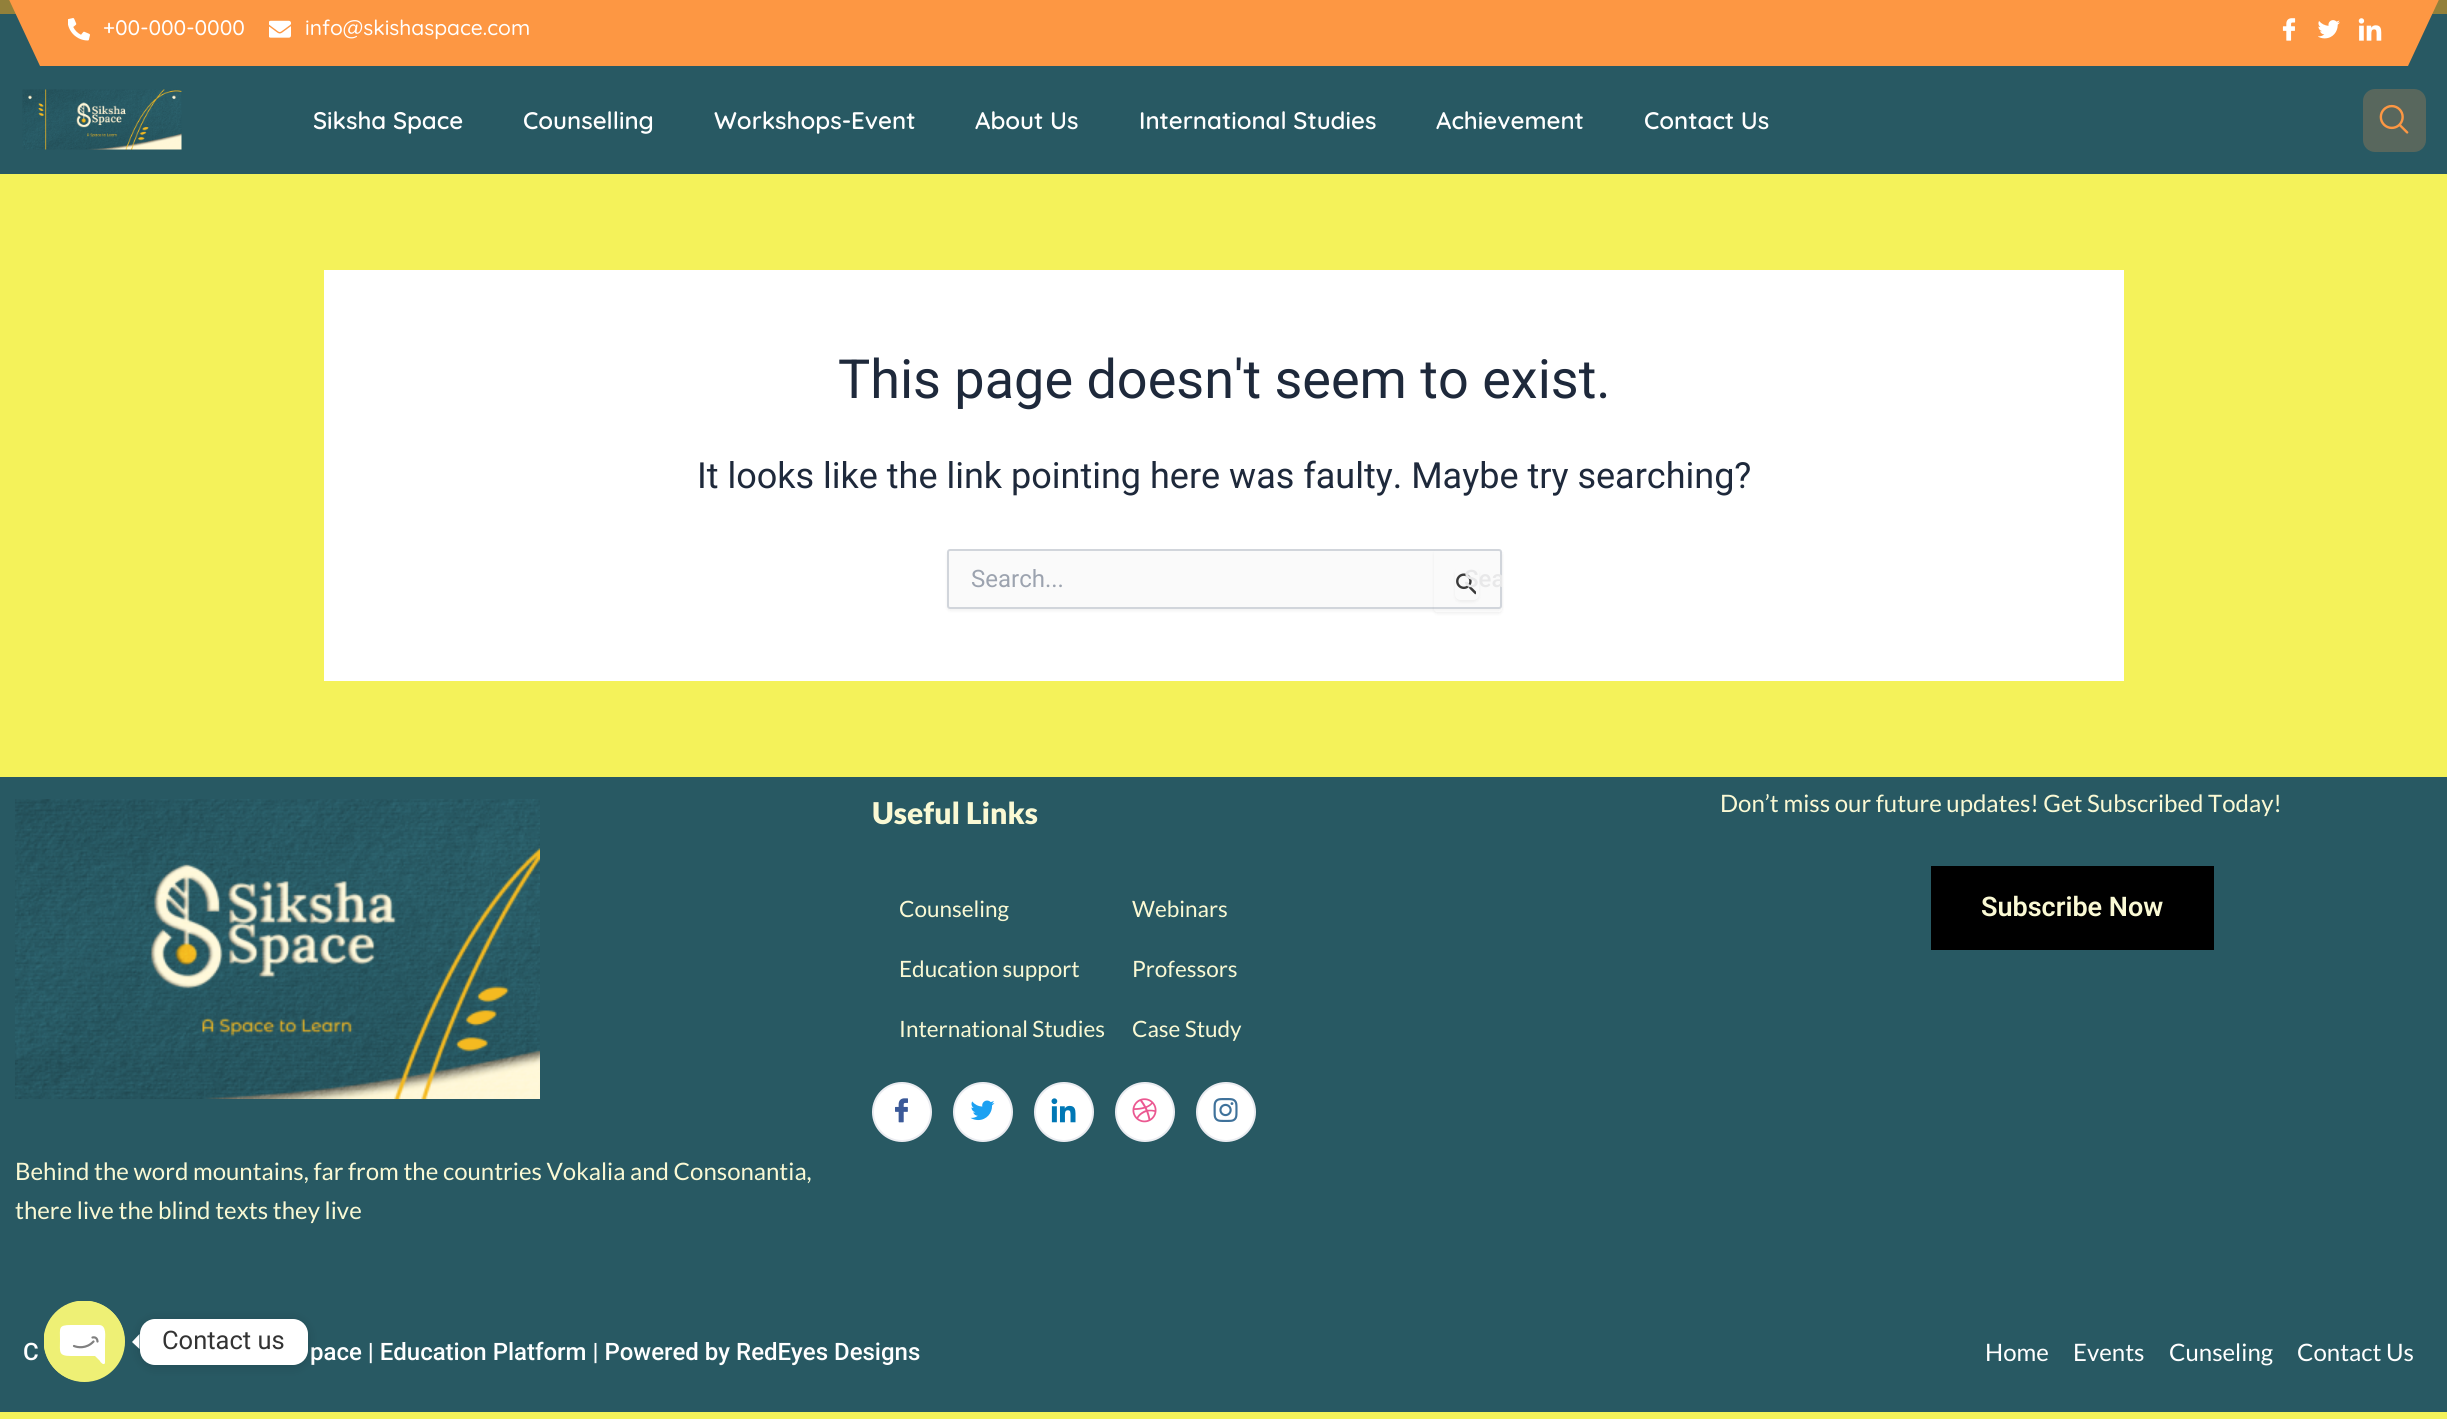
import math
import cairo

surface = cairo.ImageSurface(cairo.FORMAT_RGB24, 2447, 1419)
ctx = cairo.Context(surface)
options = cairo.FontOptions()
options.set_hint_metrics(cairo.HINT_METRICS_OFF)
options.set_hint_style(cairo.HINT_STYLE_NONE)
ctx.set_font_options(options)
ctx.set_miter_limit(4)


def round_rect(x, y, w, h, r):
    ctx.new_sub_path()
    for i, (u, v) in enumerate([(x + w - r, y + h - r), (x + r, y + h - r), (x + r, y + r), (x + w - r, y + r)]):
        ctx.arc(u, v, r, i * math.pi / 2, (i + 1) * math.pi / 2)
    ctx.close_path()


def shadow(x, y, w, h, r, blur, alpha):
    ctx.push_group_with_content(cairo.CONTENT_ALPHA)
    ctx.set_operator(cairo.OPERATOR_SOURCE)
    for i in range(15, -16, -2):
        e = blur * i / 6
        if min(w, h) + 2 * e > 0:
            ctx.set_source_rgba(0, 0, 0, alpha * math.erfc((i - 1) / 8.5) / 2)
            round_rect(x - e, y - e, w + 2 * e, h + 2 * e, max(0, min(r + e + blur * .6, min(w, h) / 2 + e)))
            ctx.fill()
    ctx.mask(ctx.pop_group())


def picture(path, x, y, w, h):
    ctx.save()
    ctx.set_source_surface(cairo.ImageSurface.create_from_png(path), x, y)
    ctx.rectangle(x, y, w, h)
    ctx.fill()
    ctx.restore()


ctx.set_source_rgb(0.957, 0.949, 0.353)
ctx.paint()
ctx.set_source_rgb(0.573, 0.502, 0.227)
ctx.rectangle(0, 0, 2447, 14)
ctx.fill()
ctx.set_source_rgb(0.157, 0.349, 0.388)
ctx.rectangle(0, 14, 2447, 160)
ctx.fill()
ctx.set_source_rgb(0.992, 0.592, 0.263)
ctx.new_path()
ctx.move_to(1241, -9)
ctx.line_to(2443, -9)
ctx.line_to(2408, 66)
ctx.line_to(1207, 66)
ctx.close_path()
ctx.fill()
picture("img3.png", 1211, 0, 26, 37)
ctx.new_path()
ctx.move_to(5, -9)
ctx.line_to(1207, -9)
ctx.line_to(1241, 66)
ctx.line_to(40, 66)
ctx.close_path()
ctx.fill()
picture("img1.png", 68, 18, 22, 23)
ctx.select_font_face("Quicksand Medium")
ctx.set_font_size(21)
ctx.set_source_rgb(1, 1, 1)
ctx.move_to(103, 35)
ctx.show_text("+00-000-0000")
picture("img2.png", 269, 20, 22, 18)
ctx.move_to(305, 35)
ctx.show_text("info@skishaspace.com")
picture("img4.png", 2282, 18, 14, 23)
picture("img5.png", 2318, 20, 22, 19)
picture("img6.png", 2358, 18, 24, 23)
picture("img7.png", 22, 89, 160, 61)
ctx.select_font_face("Quicksand SemiBold")
ctx.set_font_size(24)
ctx.move_to(313, 129)
ctx.show_text("Siksha Space")
ctx.move_to(523, 129)
ctx.show_text("Counselling")
ctx.move_to(714, 129)
ctx.show_text("Workshops-Event")
ctx.move_to(975, 129)
ctx.show_text("About Us")
ctx.move_to(1139, 129)
ctx.show_text("International Studies")
ctx.move_to(1436, 129)
ctx.show_text("Achievement")
ctx.move_to(1644, 129)
ctx.show_text("Contact Us")
ctx.set_source_rgb(0.345, 0.404, 0.365)
round_rect(2363, 89, 63, 63, 12)
ctx.fill()
picture("img8.png", 2379, 104, 30, 30)
ctx.set_source_rgb(1, 1, 1)
ctx.rectangle(324, 270, 1800, 411)
ctx.fill()
ctx.select_font_face("Roboto")
ctx.set_font_size(54)
ctx.set_source_rgb(0.118, 0.161, 0.231)
ctx.move_to(838, 398)
ctx.show_text("This page doesn't seem to exist.")
ctx.set_font_size(36)
ctx.move_to(697, 488)
ctx.show_text("It looks like the link pointing here was faulty. Maybe try searching?")
ctx.set_source_rgb(0, 0, 0)
shadow(947, 551, 555, 60, 3, 1.5, 0.05)
ctx.set_source_rgb(0.98, 0.98, 0.98)
round_rect(948, 550, 553, 58, 2)
ctx.fill_preserve()
ctx.set_source_rgb(0.82, 0.835, 0.859)
ctx.stroke()
ctx.set_font_size(24)
ctx.set_source_rgb(0.612, 0.639, 0.686)
ctx.move_to(971, 587)
ctx.show_text("Search...")
ctx.save()
ctx.set_fill_rule(cairo.FILL_RULE_EVEN_ODD)
ctx.new_path()
ctx.move_to(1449, 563)
ctx.line_to(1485, 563)
ctx.line_to(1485, 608)
ctx.line_to(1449, 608)
ctx.close_path()
ctx.move_to(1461, 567)
ctx.line_to(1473, 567)
ctx.curve_to(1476.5, 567, 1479, 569.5, 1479, 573)
ctx.line_to(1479, 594)
ctx.curve_to(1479, 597.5, 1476.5, 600, 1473, 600)
ctx.line_to(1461, 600)
ctx.curve_to(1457.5, 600, 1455, 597.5, 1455, 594)
ctx.line_to(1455, 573)
ctx.curve_to(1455, 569.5, 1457.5, 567, 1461, 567)
ctx.close_path()
ctx.clip()
ctx.set_source_rgb(0, 0, 0)
shadow(1455, 569, 24, 33, 6, 1.5, 0.05)
ctx.restore()
picture("img9.png", 1456, 573, 20, 22)
ctx.save()
ctx.set_fill_rule(cairo.FILL_RULE_EVEN_ODD)
ctx.new_path()
ctx.move_to(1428, 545)
ctx.line_to(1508, 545)
ctx.line_to(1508, 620)
ctx.line_to(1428, 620)
ctx.close_path()
ctx.move_to(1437, 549)
ctx.line_to(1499, 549)
ctx.curve_to(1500.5, 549, 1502, 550.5, 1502, 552)
ctx.line_to(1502, 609)
ctx.curve_to(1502, 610.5, 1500.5, 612, 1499, 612)
ctx.line_to(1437, 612)
ctx.curve_to(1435.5, 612, 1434, 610.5, 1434, 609)
ctx.line_to(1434, 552)
ctx.curve_to(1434, 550.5, 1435.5, 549, 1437, 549)
ctx.close_path()
ctx.clip()
ctx.set_source_rgb(0, 0, 0)
shadow(1434, 551, 68, 63, 3, 1.5, 0.05)
ctx.restore()
ctx.save()
round_rect(1434, 549, 68, 63, 3)
ctx.clip()
ctx.select_font_face("Roboto Medium")
ctx.set_source_rgb(0.91, 0.91, 0.914)
ctx.move_to(1464, 587)
ctx.show_text("Sea")
ctx.restore()
ctx.set_source_rgb(0.157, 0.349, 0.388)
ctx.rectangle(0, 777, 2447, 635)
ctx.fill()
ctx.select_font_face("Lato Black")
ctx.set_font_size(30)
ctx.set_source_rgb(0.98, 0.976, 0.831)
ctx.move_to(872, 824)
ctx.show_text("Useful Links")
ctx.select_font_face("Lato")
ctx.set_font_size(22.5)
ctx.move_to(899, 917)
ctx.show_text("Counseling")
ctx.move_to(899, 977)
ctx.show_text("Education support")
ctx.move_to(899, 1037)
ctx.show_text("International Studies")
ctx.move_to(1132, 917)
ctx.show_text("Webinars")
ctx.move_to(1132, 977)
ctx.show_text("Professors")
ctx.move_to(1132, 1037)
ctx.show_text("Case Study")
ctx.set_source_rgb(1, 1, 1)
ctx.new_path()
ctx.arc(902, 1112, 29, 0, 2 * math.pi)
ctx.fill_preserve()
ctx.set_source_rgb(0.918, 0.922, 0.945)
ctx.stroke()
picture("img10.png", 895, 1098, 13, 25)
ctx.set_source_rgb(1, 1, 1)
ctx.arc(983, 1112, 29, 0, 2 * math.pi)
ctx.fill_preserve()
ctx.set_source_rgb(0.918, 0.922, 0.945)
ctx.stroke()
picture("img11.png", 970, 1100, 25, 21)
ctx.set_source_rgb(1, 1, 1)
ctx.arc(1064, 1112, 29, 0, 2 * math.pi)
ctx.fill_preserve()
ctx.set_source_rgb(0.918, 0.922, 0.945)
ctx.stroke()
picture("img12.png", 1051, 1098, 25, 25)
ctx.set_source_rgb(1, 1, 1)
ctx.arc(1145, 1112, 29, 0, 2 * math.pi)
ctx.fill_preserve()
ctx.set_source_rgb(0.918, 0.922, 0.945)
ctx.stroke()
picture("img13.png", 1132, 1098, 25, 25)
ctx.set_source_rgb(1, 1, 1)
ctx.arc(1226, 1112, 29, 0, 2 * math.pi)
ctx.fill_preserve()
ctx.set_source_rgb(0.918, 0.922, 0.945)
ctx.stroke()
picture("img14.png", 1213, 1098, 25, 24)
ctx.set_font_size(24)
ctx.set_source_rgb(0.98, 0.976, 0.831)
ctx.move_to(1720, 812)
ctx.show_text("Don’t miss our future updates! Get Subscribed Today!")
ctx.set_source_rgb(0, 0, 0)
ctx.rectangle(1931, 866, 283, 84)
ctx.fill()
ctx.select_font_face("Roboto SemiBold")
ctx.set_font_size(27)
ctx.set_source_rgb(0.98, 0.976, 0.831)
ctx.move_to(1981, 916)
ctx.show_text("Subscribe Now")
picture("img15.png", 15, 799, 525, 300)
ctx.select_font_face("Lato")
ctx.set_font_size(24)
ctx.move_to(15, 1180)
ctx.show_text("Behind the word mountains, far from the countries Vokalia and Consonantia,")
ctx.move_to(15, 1219)
ctx.show_text("there live the blind texts they live")
ctx.select_font_face("Roboto Medium")
ctx.set_source_rgb(1, 1, 1)
ctx.move_to(23, 1360)
ctx.show_text("C")
ctx.move_to(310, 1360)
ctx.show_text("pace | Education Platform | Powered by RedEyes Designs")
ctx.select_font_face("Lato")
ctx.move_to(1985, 1361)
ctx.show_text("Home")
ctx.move_to(2073, 1361)
ctx.show_text("Events")
ctx.move_to(2169, 1361)
ctx.show_text("Cunseling")
ctx.move_to(2297, 1361)
ctx.show_text("Contact Us")
ctx.set_source_rgb(0, 0, 0)
shadow(140, 1320, 168, 47, 15, 6, 0.15)
ctx.set_source_rgb(0.933, 0.941, 0.459)
ctx.arc(84.5, 1341.5, 40.5, 0, 2 * math.pi)
ctx.fill()
ctx.save()
ctx.rectangle(44, 1301, 81, 81)
ctx.clip()
ctx.arc(84, 1341, 40.5, 0, 2 * math.pi)
ctx.fill()
ctx.restore()
ctx.set_source_rgb(1, 1, 1)
ctx.new_path()
ctx.move_to(99, 1325)
ctx.line_to(71, 1325)
ctx.curve_to(58, 1325, 60, 1328, 60, 1340)
ctx.curve_to(60, 1352, 58, 1356, 71, 1356)
ctx.line_to(95, 1356)
ctx.line_to(100, 1361)
ctx.curve_to(100, 1362, 104, 1366, 105, 1363)
ctx.line_to(105, 1341)
ctx.curve_to(105, 1337, 107, 1325, 99, 1325)
ctx.close_path()
ctx.fill()
ctx.new_path()
ctx.move_to(74, 1346)
ctx.curve_to(77.5, 1347.5, 86.5, 1349, 93.5, 1341.5)
ctx.move_to(97.5, 1341.5)
ctx.curve_to(97.5, 1340, 96.5, 1336.5, 92.5, 1337.5)
ctx.set_source_rgb(0.502, 0.502, 0.502)
ctx.set_line_width(2.2)
ctx.set_line_cap(cairo.LINE_CAP_ROUND)
ctx.set_line_join(cairo.LINE_JOIN_ROUND)
ctx.stroke()
ctx.set_source_rgb(1, 1, 1)
round_rect(140, 1319, 168, 46, 15)
ctx.fill()
ctx.new_path()
ctx.move_to(139.5, 1334)
ctx.line_to(139.5, 1349)
ctx.line_to(132, 1342)
ctx.close_path()
ctx.fill()
ctx.select_font_face("Roboto")
ctx.set_font_size(25.5)
ctx.set_source_rgb(0.2, 0.2, 0.2)
ctx.move_to(162, 1349)
ctx.show_text("Contact us")
surface.write_to_png("page.png")
